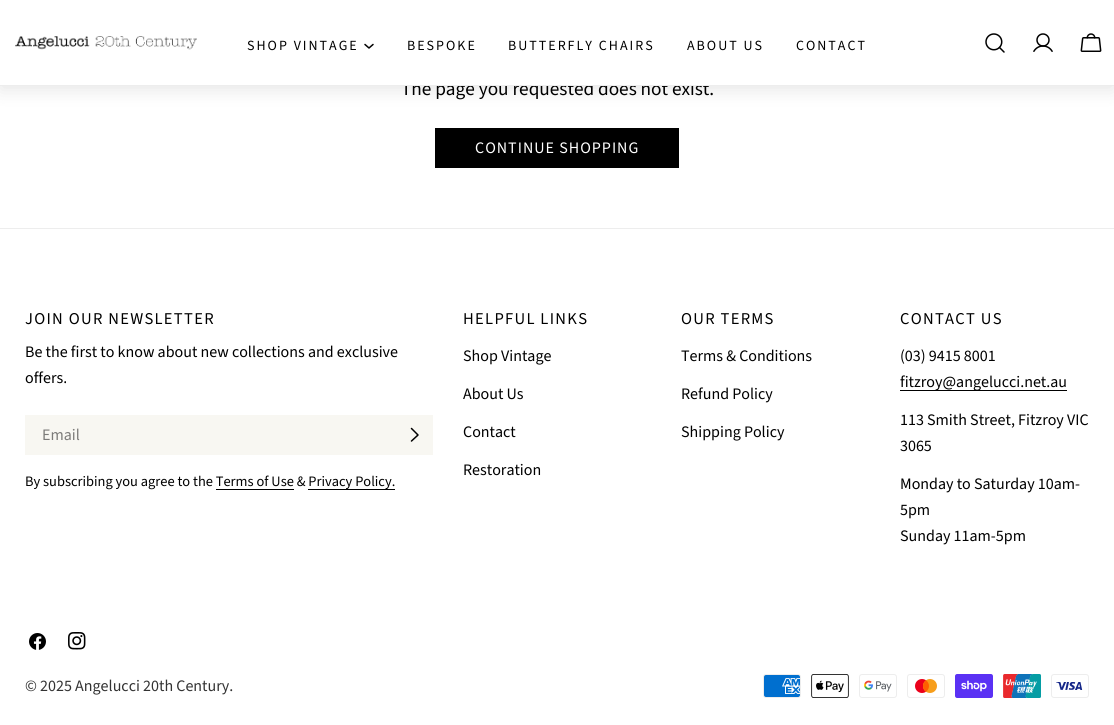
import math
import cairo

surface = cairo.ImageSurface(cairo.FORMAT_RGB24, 1114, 725)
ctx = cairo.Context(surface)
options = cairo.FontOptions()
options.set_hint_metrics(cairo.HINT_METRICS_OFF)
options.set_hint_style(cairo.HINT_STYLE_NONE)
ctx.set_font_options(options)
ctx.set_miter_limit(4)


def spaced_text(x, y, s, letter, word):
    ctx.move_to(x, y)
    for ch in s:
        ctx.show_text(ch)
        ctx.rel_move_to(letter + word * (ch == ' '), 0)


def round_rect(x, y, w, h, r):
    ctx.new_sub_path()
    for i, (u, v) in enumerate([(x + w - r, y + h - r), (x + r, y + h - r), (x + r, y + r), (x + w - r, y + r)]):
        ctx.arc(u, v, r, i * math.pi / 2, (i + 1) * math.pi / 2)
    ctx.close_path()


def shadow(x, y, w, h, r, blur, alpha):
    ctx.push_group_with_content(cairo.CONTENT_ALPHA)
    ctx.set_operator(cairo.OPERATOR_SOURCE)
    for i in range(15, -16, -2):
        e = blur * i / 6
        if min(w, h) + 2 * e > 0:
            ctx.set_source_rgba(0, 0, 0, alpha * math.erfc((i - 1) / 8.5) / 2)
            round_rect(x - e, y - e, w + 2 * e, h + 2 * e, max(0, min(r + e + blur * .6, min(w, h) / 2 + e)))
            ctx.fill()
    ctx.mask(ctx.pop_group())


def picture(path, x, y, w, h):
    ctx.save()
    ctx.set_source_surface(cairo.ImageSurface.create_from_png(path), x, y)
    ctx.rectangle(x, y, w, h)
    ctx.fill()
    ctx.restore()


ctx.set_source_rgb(1, 1, 1)
ctx.paint()
ctx.set_source_rgb(0, 0, 0)
shadow(0, 4, 1114, 86, 0, 9, 0.1)
ctx.select_font_face("Source Sans Pro")
ctx.set_font_size(19.25)
ctx.set_source_rgb(0, 0, 0)
ctx.move_to(401, 95)
ctx.show_text("The page you requested does not exist.")
ctx.set_source_rgb(0.929, 0.929, 0.929)
ctx.rectangle(0, 85, 1114, 1)
ctx.fill()
ctx.set_source_rgb(1, 1, 1)
ctx.rectangle(0, 0, 1114, 85)
ctx.fill()
picture("img1.png", 15, 36, 182, 14)
ctx.set_font_size(14)
ctx.set_source_rgb(0, 0, 0)
spaced_text(247, 50, "SHOP VINTAGE", 2, 0)
ctx.new_path()
ctx.move_to(373, 44.5)
ctx.line_to(369, 48)
ctx.line_to(365, 44.5)
ctx.set_line_width(1.5)
ctx.set_line_cap(cairo.LINE_CAP_ROUND)
ctx.set_line_join(cairo.LINE_JOIN_ROUND)
ctx.stroke()
spaced_text(407, 50, "BESPOKE", 2, 0)
spaced_text(508, 50, "BUTTERFLY CHAIRS", 2, 0)
spaced_text(687, 50, "ABOUT US", 2, 0)
spaced_text(796, 50, "CONTACT", 2, 0)
picture("img2.png", 985, 33, 20, 20)
picture("img3.png", 1033, 33, 20, 19)
picture("img4.png", 1080, 33, 22, 19)
ctx.rectangle(435, 128, 244, 40)
ctx.fill()
ctx.set_font_size(16)
ctx.set_source_rgb(1, 1, 1)
spaced_text(475, 153, "CONTINUE SHOPPING", 1, 0)
ctx.set_source_rgb(0.929, 0.929, 0.929)
ctx.rectangle(0, 228, 1114, 1)
ctx.fill()
ctx.set_font_size(16.5)
ctx.set_source_rgb(0, 0, 0)
spaced_text(25, 324, "JOIN OUR NEWSLETTER", 1.3, 0)
ctx.set_font_size(16)
ctx.move_to(25, 357)
ctx.show_text("Be the first to know about new collections and exclusive")
ctx.move_to(25, 383)
ctx.show_text("offers.")
ctx.set_source_rgb(0.969, 0.965, 0.949)
ctx.rectangle(25, 415, 408, 40)
ctx.fill()
ctx.set_source_rgb(0.486, 0.482, 0.475)
ctx.move_to(42, 440)
ctx.show_text("Email")
ctx.new_path()
ctx.move_to(411.5, 428.5)
ctx.line_to(418, 435)
ctx.line_to(411.5, 441)
ctx.set_source_rgb(0, 0, 0)
ctx.stroke()
ctx.set_font_size(14.4)
ctx.move_to(25, 486)
ctx.show_text("By subscribing you agree to the Terms of Use & Privacy Policy.")
ctx.rectangle(216, 489, 78, 1)
ctx.fill()
ctx.rectangle(308, 489, 87, 1)
ctx.fill()
ctx.set_font_size(16.5)
spaced_text(463, 324, "HELPFUL LINKS", 1.3, 0)
ctx.set_font_size(16)
ctx.move_to(463, 361)
ctx.show_text("Shop Vintage")
ctx.move_to(463, 399)
ctx.show_text("About Us")
ctx.move_to(463, 437)
ctx.show_text("Contact")
ctx.move_to(463, 475)
ctx.show_text("Restoration")
ctx.set_font_size(16.5)
spaced_text(681, 324, "OUR TERMS", 1.3, 0)
ctx.set_font_size(16)
ctx.move_to(681, 361)
ctx.show_text("Terms & Conditions")
ctx.move_to(681, 399)
ctx.show_text("Refund Policy")
ctx.move_to(681, 437)
ctx.show_text("Shipping Policy")
ctx.set_font_size(16.5)
spaced_text(900, 324, "CONTACT US", 1.3, 0)
ctx.set_font_size(16)
ctx.move_to(900, 361)
ctx.show_text("(03) 9415 8001")
ctx.rectangle(900, 390, 167, 1)
ctx.fill()
ctx.move_to(900, 387)
ctx.show_text("fitzroy@angelucci.net.au")
ctx.move_to(900, 425)
ctx.show_text("113 Smith Street, Fitzroy VIC")
ctx.move_to(900, 451)
ctx.show_text("3065")
ctx.move_to(900, 489)
ctx.show_text("Monday to Saturday 10am-")
ctx.move_to(900, 515)
ctx.show_text("5pm")
ctx.move_to(900, 541)
ctx.show_text("Sunday 11am-5pm")
picture("img5.png", 29, 633, 17, 17)
picture("img6.png", 68, 632, 18, 18)
ctx.set_source_rgb(0.2, 0.2, 0.2)
ctx.move_to(25, 691)
ctx.show_text("© 2025 Angelucci 20th Century.")
picture("img7.png", 763, 674, 38, 24)
picture("img8.png", 811, 674, 38, 24)
picture("img9.png", 859, 674, 38, 24)
picture("img10.png", 907, 674, 38, 24)
picture("img11.png", 955, 674, 38, 24)
picture("img12.png", 1003, 674, 38, 24)
picture("img13.png", 1051, 674, 38, 24)
surface.write_to_png("page.png")
